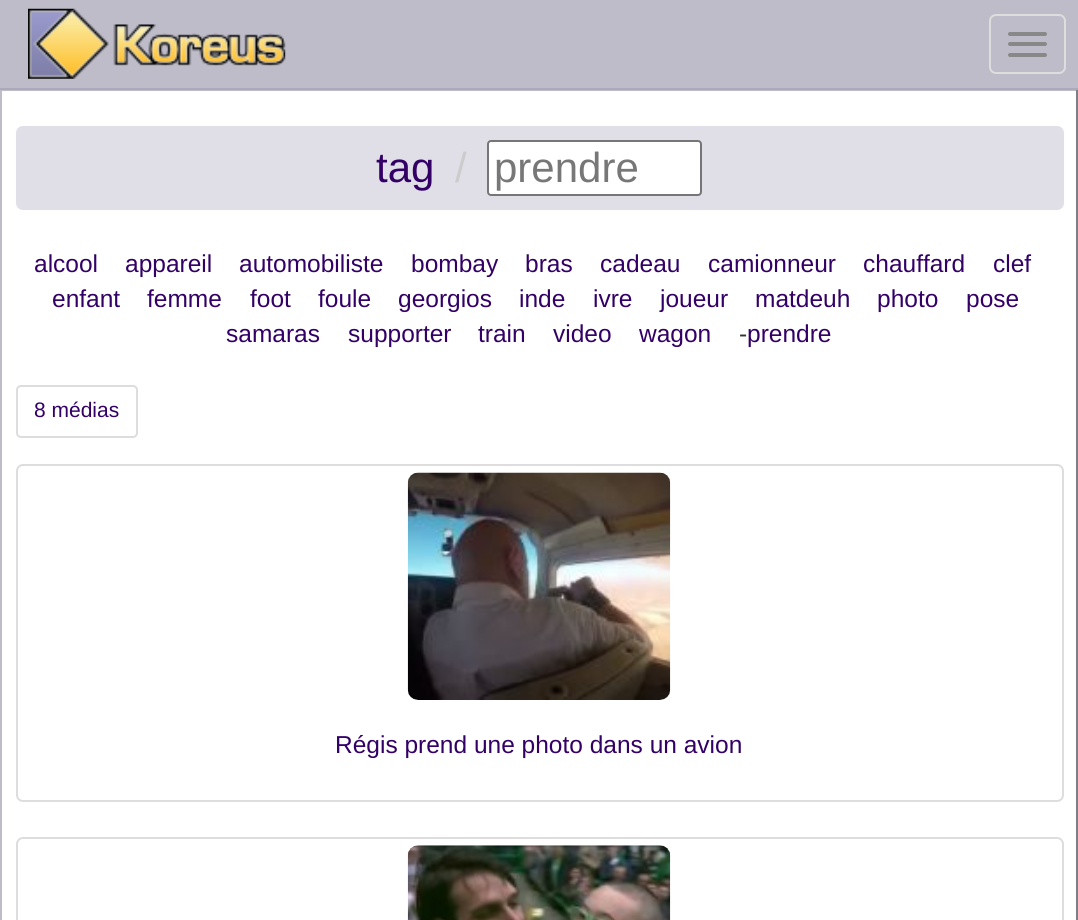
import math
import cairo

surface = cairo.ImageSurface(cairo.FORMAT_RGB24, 1078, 920)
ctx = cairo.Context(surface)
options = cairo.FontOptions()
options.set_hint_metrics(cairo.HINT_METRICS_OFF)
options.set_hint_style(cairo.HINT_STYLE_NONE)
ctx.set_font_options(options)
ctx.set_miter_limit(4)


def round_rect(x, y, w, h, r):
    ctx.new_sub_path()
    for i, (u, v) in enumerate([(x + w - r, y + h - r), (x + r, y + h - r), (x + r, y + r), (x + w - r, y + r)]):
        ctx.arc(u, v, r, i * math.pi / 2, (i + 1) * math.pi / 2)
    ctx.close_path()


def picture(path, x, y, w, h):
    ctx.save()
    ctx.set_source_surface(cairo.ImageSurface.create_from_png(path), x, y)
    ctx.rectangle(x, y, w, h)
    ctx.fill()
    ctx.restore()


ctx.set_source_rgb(1, 1, 1)
ctx.paint()
ctx.set_source_rgb(0.745, 0.737, 0.788)
ctx.rectangle(0, 0, 1078, 88)
ctx.fill()
ctx.rectangle(0, 90, 1078, 1)
ctx.fill()
ctx.set_source_rgb(0.498, 0.49, 0.525)
ctx.rectangle(1076, 89, 2, 831)
ctx.fill()
ctx.set_source_rgb(0.745, 0.737, 0.788)
ctx.rectangle(0, 89, 2, 831)
ctx.fill()
ctx.set_source_rgb(0.675, 0.667, 0.729)
ctx.rectangle(0, 88, 1078, 2)
ctx.fill()
picture("img1.png", 28, 8, 258, 71)
round_rect(990, 15, 75, 58, 6)
ctx.set_source_rgb(0.867, 0.867, 0.867)
ctx.stroke()
ctx.set_source_rgb(0.533, 0.533, 0.533)
round_rect(1008, 32, 39, 4, 2)
ctx.fill()
round_rect(1008, 42, 39, 4, 2)
ctx.fill()
round_rect(1008, 53, 39, 4, 2)
ctx.fill()
ctx.set_source_rgb(0.878, 0.875, 0.906)
round_rect(16, 126, 1048, 84, 7)
ctx.fill()
ctx.select_font_face("Liberation Sans")
ctx.set_font_size(42)
ctx.set_source_rgb(0.2, 0, 0.4)
ctx.move_to(376, 182)
ctx.show_text("tag")
ctx.set_source_rgb(0.8, 0.8, 0.8)
ctx.move_to(455, 182)
ctx.show_text("/")
ctx.set_source_rgb(1, 1, 1)
round_rect(488, 141, 213, 54, 3)
ctx.fill_preserve()
ctx.set_source_rgb(0.463, 0.463, 0.463)
ctx.stroke()
ctx.set_source_rgb(0.467, 0.467, 0.467)
ctx.move_to(494, 182)
ctx.show_text("prendre")
ctx.set_font_size(24.5)
ctx.set_source_rgb(0.2, 0, 0.4)
ctx.move_to(34, 272)
ctx.show_text("alcool")
ctx.move_to(125, 272)
ctx.show_text("appareil")
ctx.move_to(239, 272)
ctx.show_text("automobiliste")
ctx.move_to(411, 272)
ctx.show_text("bombay")
ctx.move_to(525, 272)
ctx.show_text("bras")
ctx.move_to(600, 272)
ctx.show_text("cadeau")
ctx.move_to(708, 272)
ctx.show_text("camionneur")
ctx.move_to(863, 272)
ctx.show_text("chauffard")
ctx.move_to(993, 272)
ctx.show_text("clef")
ctx.move_to(52, 307)
ctx.show_text("enfant")
ctx.move_to(147, 307)
ctx.show_text("femme")
ctx.move_to(250, 307)
ctx.show_text("foot")
ctx.move_to(318, 307)
ctx.show_text("foule")
ctx.move_to(398, 307)
ctx.show_text("georgios")
ctx.move_to(519, 307)
ctx.show_text("inde")
ctx.move_to(593, 307)
ctx.show_text("ivre")
ctx.move_to(660, 307)
ctx.show_text("joueur")
ctx.move_to(755, 307)
ctx.show_text("matdeuh")
ctx.move_to(877, 307)
ctx.show_text("photo")
ctx.move_to(966, 307)
ctx.show_text("pose")
ctx.move_to(226, 342)
ctx.show_text("samaras")
ctx.move_to(348, 342)
ctx.show_text("supporter")
ctx.move_to(478, 342)
ctx.show_text("train")
ctx.move_to(553, 342)
ctx.show_text("video")
ctx.move_to(639, 342)
ctx.show_text("wagon")
ctx.set_source_rgb(0.2, 0.2, 0.2)
ctx.move_to(739, 342)
ctx.show_text("-")
ctx.set_source_rgb(0.2, 0, 0.4)
ctx.move_to(747, 342)
ctx.show_text("prendre")
round_rect(17, 386, 120, 51, 4)
ctx.set_source_rgb(0.867, 0.867, 0.867)
ctx.stroke()
ctx.set_font_size(21)
ctx.set_source_rgb(0.2, 0, 0.4)
ctx.move_to(34, 417)
ctx.show_text("8 médias")
round_rect(17, 465, 1046, 336, 6)
ctx.set_source_rgb(0.867, 0.867, 0.867)
ctx.stroke()
picture("img2.png", 407, 472, 264, 228)
ctx.set_font_size(24.5)
ctx.set_source_rgb(0.2, 0, 0.4)
ctx.move_to(335, 753)
ctx.show_text("Régis prend une photo dans un avion")
round_rect(17, 838, 1046, 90, 6)
ctx.set_source_rgb(0.867, 0.867, 0.867)
ctx.stroke()
picture("img3.png", 407, 845, 264, 75)
surface.write_to_png("page.png")
